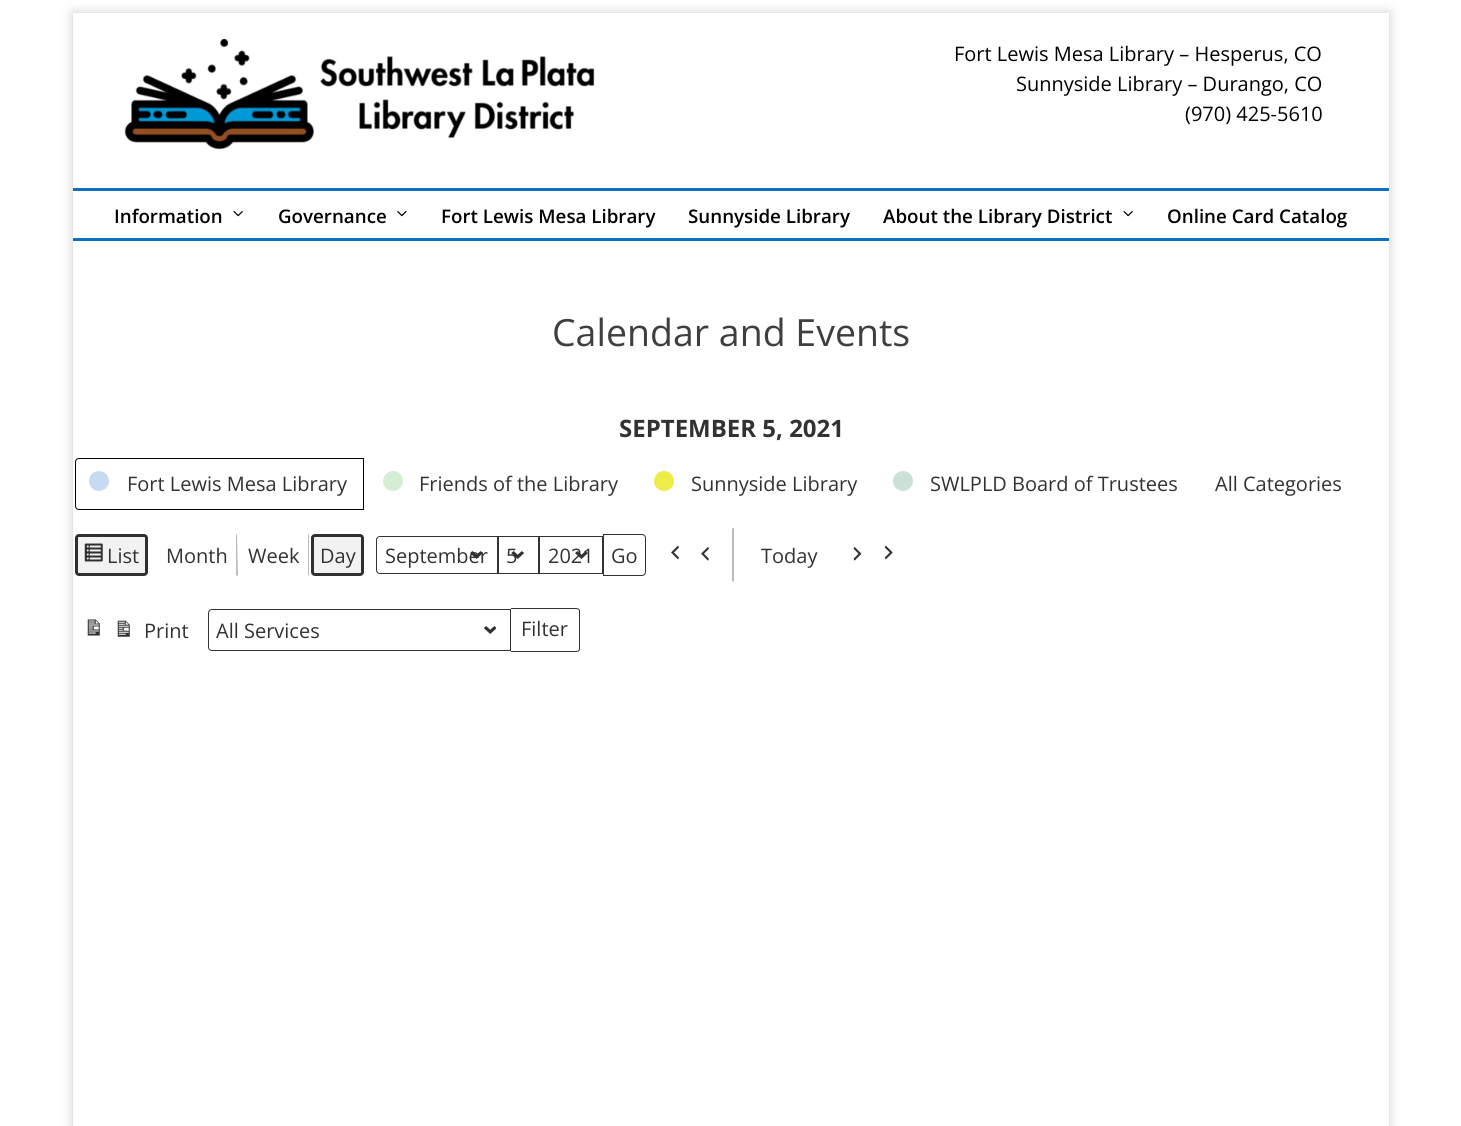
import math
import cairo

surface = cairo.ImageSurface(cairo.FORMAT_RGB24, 1461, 1126)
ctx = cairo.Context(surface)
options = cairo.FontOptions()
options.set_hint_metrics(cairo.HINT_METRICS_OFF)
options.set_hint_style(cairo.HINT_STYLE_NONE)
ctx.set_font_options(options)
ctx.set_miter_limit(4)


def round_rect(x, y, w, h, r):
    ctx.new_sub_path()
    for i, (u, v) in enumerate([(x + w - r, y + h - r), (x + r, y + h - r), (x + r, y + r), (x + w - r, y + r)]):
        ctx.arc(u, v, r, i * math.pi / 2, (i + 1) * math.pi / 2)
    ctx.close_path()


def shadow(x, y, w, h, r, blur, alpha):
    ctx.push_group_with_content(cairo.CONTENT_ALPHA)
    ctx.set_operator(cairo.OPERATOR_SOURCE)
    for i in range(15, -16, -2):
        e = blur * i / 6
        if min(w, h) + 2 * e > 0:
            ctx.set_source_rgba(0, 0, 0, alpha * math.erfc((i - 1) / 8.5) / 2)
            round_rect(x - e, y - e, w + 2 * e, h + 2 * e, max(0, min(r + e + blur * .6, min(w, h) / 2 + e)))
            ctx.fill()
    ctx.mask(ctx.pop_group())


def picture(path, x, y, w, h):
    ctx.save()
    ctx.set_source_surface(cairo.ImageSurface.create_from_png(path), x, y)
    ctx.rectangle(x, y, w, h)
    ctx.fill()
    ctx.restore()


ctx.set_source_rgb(1, 1, 1)
ctx.paint()
ctx.save()
ctx.set_fill_rule(cairo.FILL_RULE_EVEN_ODD)
ctx.new_path()
ctx.move_to(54, 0)
ctx.line_to(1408, 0)
ctx.line_to(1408, 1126)
ctx.line_to(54, 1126)
ctx.close_path()
ctx.move_to(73, 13)
ctx.line_to(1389, 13)
ctx.line_to(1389, 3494)
ctx.line_to(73, 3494)
ctx.close_path()
ctx.clip()
ctx.set_source_rgb(0, 0, 0)
shadow(73, 13, 1316, 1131, 0, 6, 0.2)
ctx.restore()
ctx.set_source_rgb(1, 1, 1)
ctx.rectangle(1388, 13, 1, 162)
ctx.fill()
picture("img1.png", 124, 39, 471, 111)
ctx.select_font_face("Open Sans")
ctx.set_font_size(20)
ctx.set_source_rgb(0, 0, 0)
ctx.move_to(954, 61)
ctx.show_text("Fort Lewis Mesa Library – Hesperus, CO")
ctx.move_to(1016, 91)
ctx.show_text("Sunnyside Library – Durango, CO")
ctx.move_to(1185, 121)
ctx.show_text("(970) 425-5610")
ctx.set_source_rgb(1, 1, 1)
ctx.rectangle(1388, 191, 1, 47)
ctx.fill()
ctx.set_source_rgb(0.047, 0.443, 0.765)
ctx.rectangle(73, 188, 1316, 3)
ctx.fill()
ctx.rectangle(73, 238, 1316, 3)
ctx.fill()
ctx.select_font_face("Open Sans SemiBold")
ctx.set_font_size(18.75)
ctx.set_source_rgb(0, 0, 0)
ctx.move_to(114, 223)
ctx.show_text("Information")
picture("img2.png", 233, 211, 10, 6)
ctx.move_to(278, 223)
ctx.show_text("Governance")
picture("img3.png", 397, 211, 10, 6)
ctx.move_to(441, 223)
ctx.show_text("Fort Lewis Mesa Library")
ctx.move_to(688, 223)
ctx.show_text("Sunnyside Library")
ctx.move_to(883, 223)
ctx.show_text("About the Library District")
picture("img2.png", 1123, 211, 10, 6)
ctx.move_to(1167, 223)
ctx.show_text("Online Card Catalog")
ctx.set_source_rgb(0.992, 0.992, 0.992)
ctx.rectangle(1388, 241, 1, 885)
ctx.fill()
ctx.select_font_face("Open Sans")
ctx.set_font_size(37.5)
ctx.set_source_rgb(0.247, 0.247, 0.247)
ctx.move_to(552, 346)
ctx.show_text("Calendar and Events")
ctx.select_font_face("Open Sans", cairo.FONT_SLANT_NORMAL, cairo.FONT_WEIGHT_BOLD)
ctx.set_font_size(24)
ctx.set_source_rgb(0.192, 0.196, 0.2)
ctx.move_to(619, 437)
ctx.show_text("SEPTEMBER 5, 2021")
ctx.new_path()
ctx.move_to(79, 458.5)
ctx.line_to(363.5, 458.5)
ctx.line_to(363.5, 509.5)
ctx.line_to(79, 509.5)
ctx.curve_to(77, 509.5, 75.5, 508, 75.5, 506)
ctx.line_to(75.5, 462)
ctx.curve_to(75.5, 460, 77, 458.5, 79, 458.5)
ctx.close_path()
ctx.set_source_rgb(0, 0, 0)
ctx.set_line_width(1)
ctx.stroke()
ctx.set_source_rgb(0.776, 0.859, 0.949)
ctx.arc(99, 481, 10, 0, 2 * math.pi)
ctx.fill()
ctx.select_font_face("Open Sans")
ctx.set_font_size(20)
ctx.set_source_rgb(0.192, 0.196, 0.2)
ctx.move_to(127, 491)
ctx.show_text("Fort Lewis Mesa Library")
ctx.set_source_rgb(0.835, 0.929, 0.827)
ctx.new_path()
ctx.arc(393, 481, 10, 0, 2 * math.pi)
ctx.fill()
ctx.set_source_rgb(0.192, 0.196, 0.2)
ctx.move_to(419, 491)
ctx.show_text("Friends of the Library")
ctx.set_source_rgb(0.929, 0.929, 0.286)
ctx.new_path()
ctx.arc(664, 481, 10, 0, 2 * math.pi)
ctx.fill()
ctx.set_source_rgb(0.192, 0.196, 0.2)
ctx.move_to(691, 491)
ctx.show_text("Sunnyside Library")
ctx.set_source_rgb(0.8, 0.878, 0.847)
ctx.new_path()
ctx.arc(903, 481, 10, 0, 2 * math.pi)
ctx.fill()
ctx.set_source_rgb(0.192, 0.196, 0.2)
ctx.move_to(930, 491)
ctx.show_text("SWLPLD Board of Trustees")
ctx.move_to(1215, 491)
ctx.show_text("All Categories")
ctx.set_source_rgb(0.949, 0.949, 0.949)
round_rect(75, 534, 73, 42, 4)
ctx.fill()
round_rect(76.5, 535.5, 70, 39, 2.5)
ctx.set_source_rgb(0.184, 0.188, 0.188)
ctx.set_line_width(3)
ctx.stroke()
picture("img4.png", 84, 543, 19, 19)
ctx.set_source_rgb(0.192, 0.196, 0.2)
ctx.move_to(107, 563)
ctx.show_text("List")
ctx.set_source_rgb(0.733, 0.733, 0.733)
ctx.new_path()
ctx.move_to(238, 576)
ctx.line_to(236, 575)
ctx.line_to(236, 535)
ctx.line_to(237, 534)
ctx.close_path()
ctx.fill()
ctx.set_source_rgb(0.192, 0.196, 0.2)
ctx.move_to(166, 563)
ctx.show_text("Month")
ctx.set_source_rgb(0.733, 0.733, 0.733)
ctx.new_path()
ctx.move_to(309, 534)
ctx.line_to(309, 576)
ctx.line_to(308, 575)
ctx.line_to(308, 535)
ctx.close_path()
ctx.fill()
ctx.set_source_rgb(0.192, 0.196, 0.2)
ctx.move_to(248, 563)
ctx.show_text("Week")
ctx.set_source_rgb(0.949, 0.949, 0.949)
round_rect(311, 534, 53, 42, 4)
ctx.fill()
round_rect(312.5, 535.5, 50, 39, 2.5)
ctx.set_source_rgb(0.184, 0.188, 0.188)
ctx.stroke()
ctx.set_source_rgb(0.192, 0.196, 0.2)
ctx.move_to(320, 563)
ctx.show_text("Day")
picture("img5.png", 470, 551, 13, 8)
ctx.new_path()
ctx.move_to(380, 536.5)
ctx.line_to(497.5, 536.5)
ctx.line_to(497.5, 573.5)
ctx.line_to(380, 573.5)
ctx.curve_to(378, 573.5, 376.5, 572, 376.5, 570)
ctx.line_to(376.5, 540)
ctx.curve_to(376.5, 538, 378, 536.5, 380, 536.5)
ctx.close_path()
ctx.set_line_width(1)
ctx.stroke()
ctx.move_to(385, 563)
ctx.show_text("September")
picture("img6.png", 511, 551, 13, 8)
ctx.rectangle(498.5, 536.5, 40, 37)
ctx.stroke()
ctx.move_to(506, 563)
ctx.show_text("5")
picture("img5.png", 575, 551, 13, 8)
ctx.rectangle(539.5, 536.5, 63, 37)
ctx.stroke()
ctx.move_to(548, 563)
ctx.show_text("2021")
ctx.new_path()
ctx.move_to(603.5, 534.5)
ctx.line_to(642, 534.5)
ctx.curve_to(644, 534.5, 645.5, 536, 645.5, 538)
ctx.line_to(645.5, 572)
ctx.curve_to(645.5, 574, 644, 575.5, 642, 575.5)
ctx.line_to(603.5, 575.5)
ctx.close_path()
ctx.stroke()
ctx.move_to(611, 563)
ctx.show_text("Go")
ctx.set_source_rgb(0.733, 0.733, 0.733)
ctx.new_path()
ctx.move_to(734, 582)
ctx.line_to(732, 581)
ctx.line_to(732, 529)
ctx.line_to(733, 528)
ctx.line_to(734, 528)
ctx.close_path()
ctx.fill()
picture("img7.png", 671, 545, 8, 15)
picture("img8.png", 701, 546, 8, 15)
ctx.set_source_rgb(0.192, 0.196, 0.2)
ctx.move_to(761, 563)
ctx.show_text("Today")
picture("img9.png", 853, 546, 9, 15)
picture("img10.png", 884, 545, 9, 15)
picture("img11.png", 87, 619, 13, 17)
picture("img12.png", 117, 620, 13, 17)
ctx.move_to(144, 638)
ctx.show_text("Print")
picture("img13.png", 484, 626, 12, 8)
ctx.new_path()
ctx.move_to(212, 609.5)
ctx.line_to(510.5, 609.5)
ctx.line_to(510.5, 650.5)
ctx.line_to(212, 650.5)
ctx.curve_to(210, 650.5, 208.5, 649, 208.5, 647)
ctx.line_to(208.5, 613)
ctx.curve_to(208.5, 611, 210, 609.5, 212, 609.5)
ctx.close_path()
ctx.stroke()
ctx.move_to(216, 638)
ctx.show_text("All Services")
ctx.set_fill_rule(cairo.FILL_RULE_EVEN_ODD)
ctx.new_path()
ctx.move_to(511, 608)
ctx.line_to(576, 608)
ctx.curve_to(578, 608, 580, 609, 580, 611)
ctx.line_to(580, 649)
ctx.curve_to(580, 651, 578, 652, 576, 652)
ctx.line_to(511, 652)
ctx.close_path()
ctx.move_to(511, 609)
ctx.line_to(576, 609)
ctx.curve_to(578, 609, 579, 610, 579, 611)
ctx.line_to(579, 649)
ctx.curve_to(579, 650, 578, 651, 576, 651)
ctx.line_to(511, 651)
ctx.close_path()
ctx.fill()
ctx.move_to(521, 636)
ctx.show_text("Filter")
surface.write_to_png("page.png")
